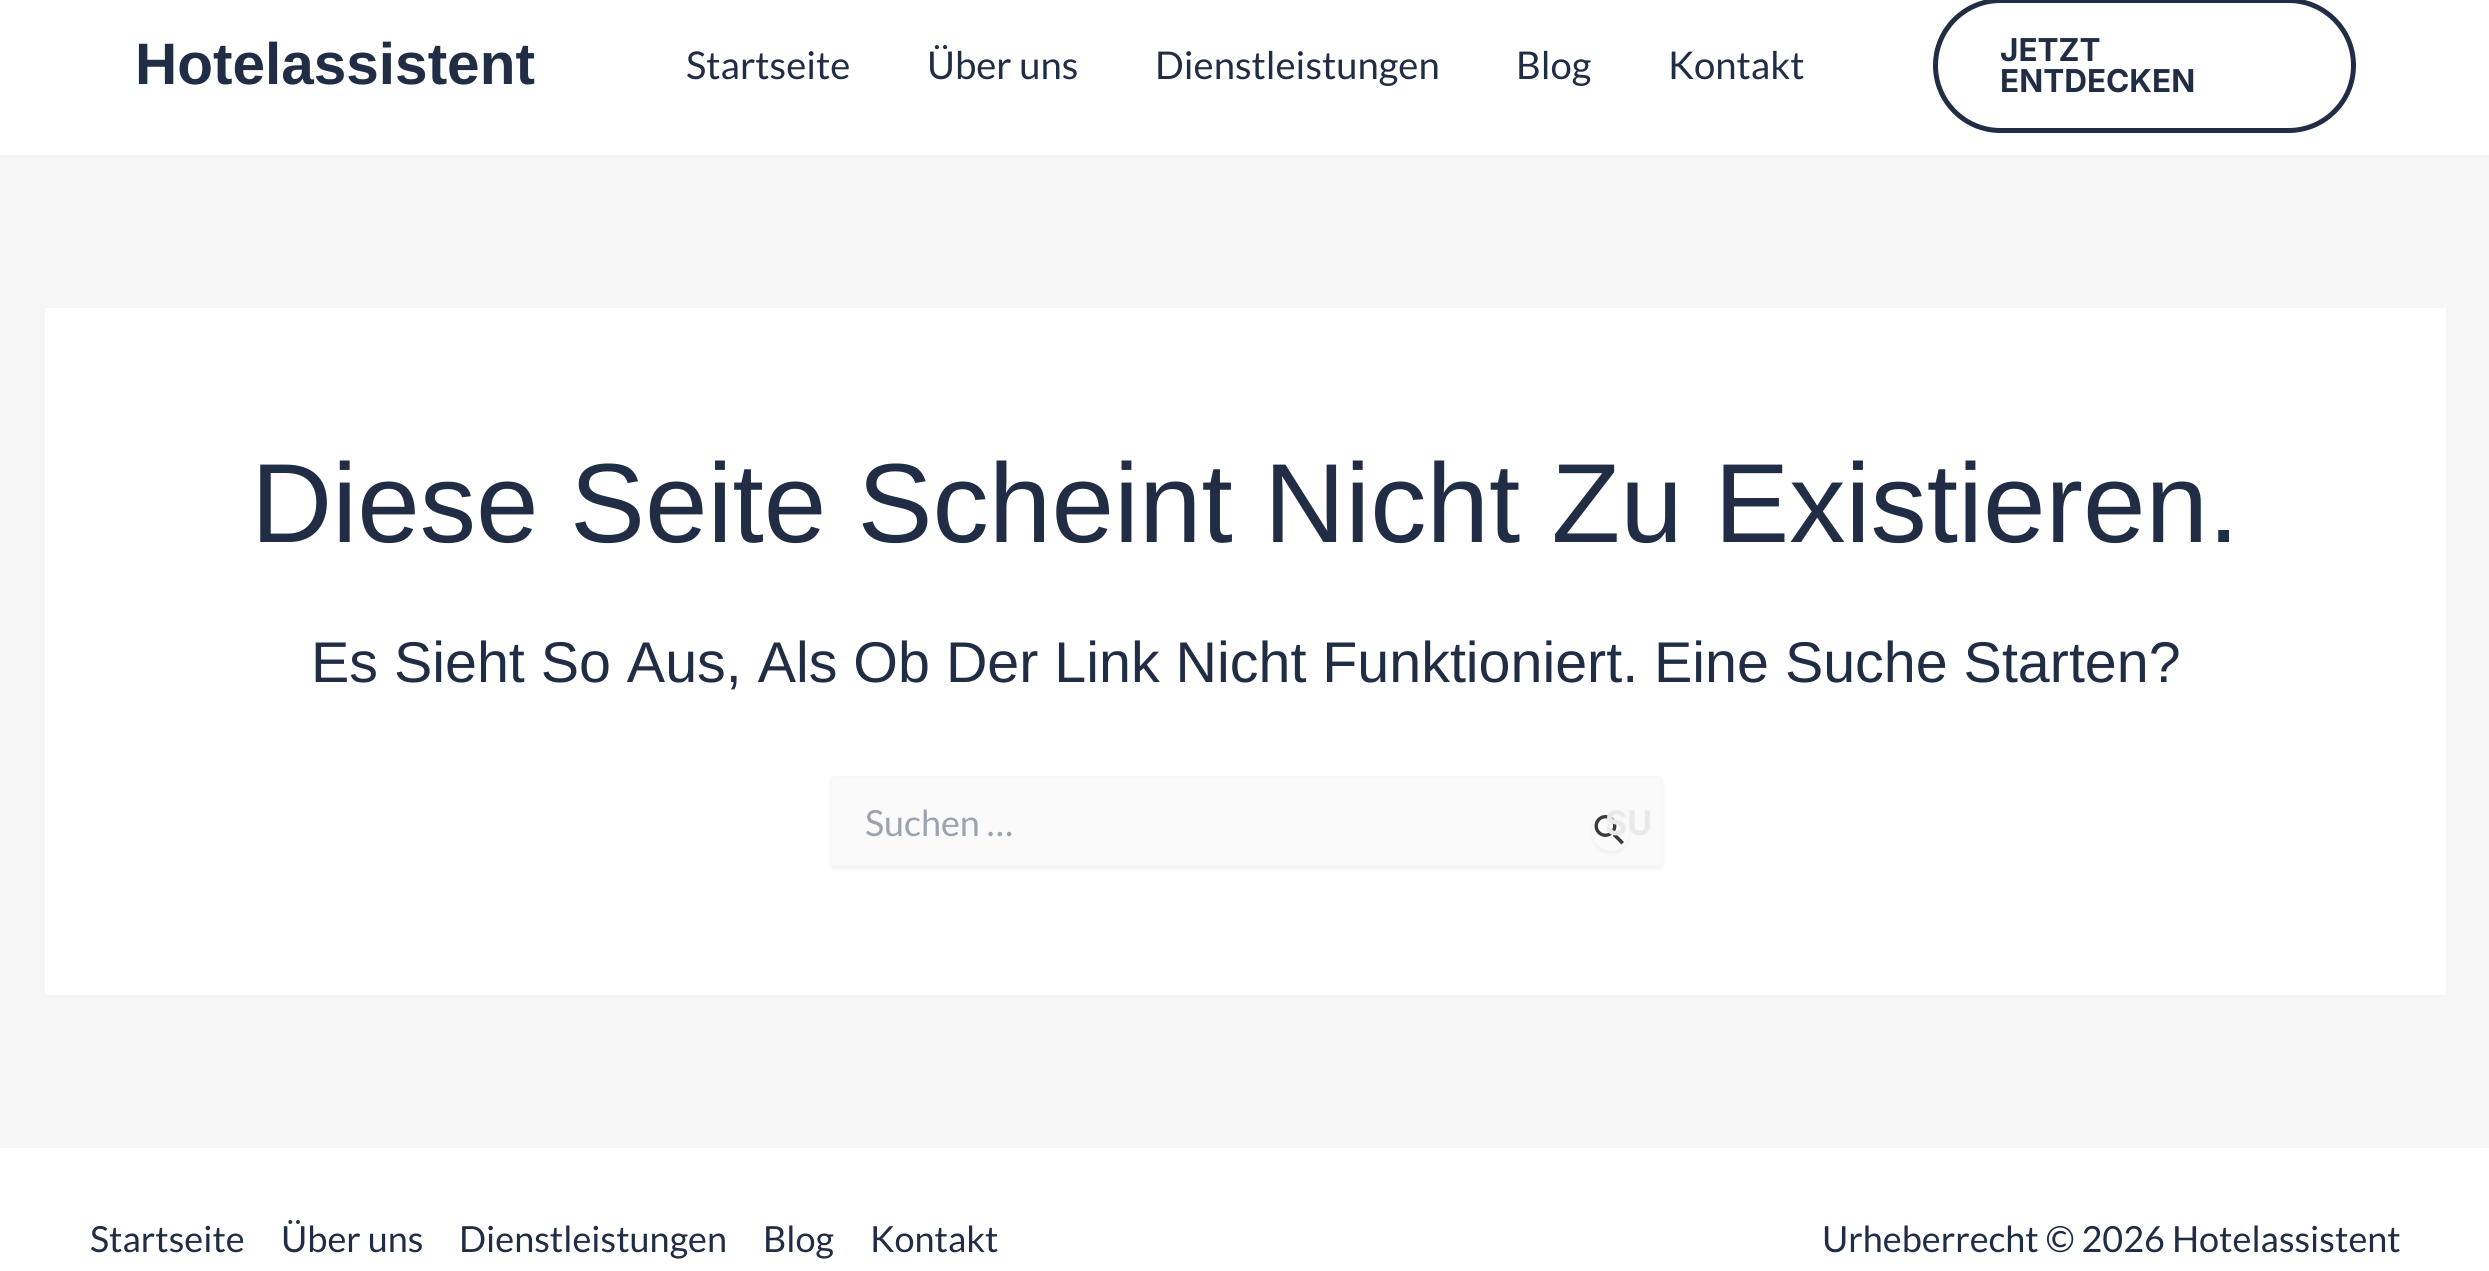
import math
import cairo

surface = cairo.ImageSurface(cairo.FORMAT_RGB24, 2489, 1271)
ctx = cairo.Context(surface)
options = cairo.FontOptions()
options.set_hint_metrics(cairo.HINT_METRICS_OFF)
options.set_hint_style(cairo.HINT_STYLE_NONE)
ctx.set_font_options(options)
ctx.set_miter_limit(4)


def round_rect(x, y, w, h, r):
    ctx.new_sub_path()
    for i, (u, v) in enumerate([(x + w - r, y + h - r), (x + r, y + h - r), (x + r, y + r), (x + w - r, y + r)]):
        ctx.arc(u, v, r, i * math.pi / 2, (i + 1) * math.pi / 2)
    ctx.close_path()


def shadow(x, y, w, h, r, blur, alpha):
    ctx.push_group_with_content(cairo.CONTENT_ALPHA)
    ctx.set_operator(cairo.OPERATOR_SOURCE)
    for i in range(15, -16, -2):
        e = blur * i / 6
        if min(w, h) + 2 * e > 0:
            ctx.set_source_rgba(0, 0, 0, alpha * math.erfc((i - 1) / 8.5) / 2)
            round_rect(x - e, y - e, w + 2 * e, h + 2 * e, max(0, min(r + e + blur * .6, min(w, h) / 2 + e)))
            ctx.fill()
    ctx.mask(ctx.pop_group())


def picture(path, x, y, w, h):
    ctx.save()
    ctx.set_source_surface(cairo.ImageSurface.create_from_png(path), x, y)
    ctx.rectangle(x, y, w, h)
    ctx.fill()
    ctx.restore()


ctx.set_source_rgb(0.961, 0.961, 0.961)
ctx.paint()
ctx.set_source_rgb(1, 1, 1)
ctx.rectangle(0, 0, 2489, 155)
ctx.fill()
ctx.select_font_face("Liberation Sans", cairo.FONT_SLANT_NORMAL, cairo.FONT_WEIGHT_BOLD)
ctx.set_font_size(58.5)
ctx.set_source_rgb(0.129, 0.176, 0.271)
ctx.move_to(135, 84)
ctx.show_text("Hotelassistent")
ctx.select_font_face("Lato")
ctx.set_font_size(38.25)
ctx.move_to(686, 79)
ctx.show_text("Startseite")
ctx.move_to(927, 79)
ctx.show_text("Über uns")
ctx.move_to(1155, 79)
ctx.show_text("Dienstleistungen")
ctx.move_to(1516, 79)
ctx.show_text("Blog")
ctx.move_to(1668, 79)
ctx.show_text("Kontakt")
round_rect(1935.5, 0.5, 418, 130, 65)
ctx.set_line_width(5)
ctx.stroke()
ctx.select_font_face("Inter", cairo.FONT_SLANT_NORMAL, cairo.FONT_WEIGHT_BOLD)
ctx.set_font_size(31.5)
ctx.move_to(2000, 61)
ctx.show_text("JETZT")
ctx.move_to(2000, 92)
ctx.show_text("ENTDECKEN")
ctx.set_source_rgb(1, 1, 1)
ctx.rectangle(45, 308, 2401, 687)
ctx.fill()
ctx.select_font_face("Liberation Sans")
ctx.set_font_size(112.5)
ctx.set_source_rgb(0.129, 0.176, 0.271)
ctx.move_to(251, 542)
ctx.show_text("Diese Seite Scheint Nicht Zu Existieren.")
ctx.set_font_size(57.4)
ctx.move_to(311, 682)
ctx.show_text("Es Sieht So Aus, Als Ob Der Link Nicht Funktioniert. Eine Suche Starten?")
ctx.set_source_rgb(0, 0, 0)
shadow(830, 779, 833, 90, 5, 2, 0.05)
ctx.set_source_rgb(0.98, 0.98, 0.98)
round_rect(831, 777, 831, 88, 4)
ctx.fill_preserve()
ctx.set_source_rgb(0.969, 0.969, 0.969)
ctx.set_line_width(2)
ctx.stroke()
ctx.select_font_face("Lato")
ctx.set_font_size(36)
ctx.set_source_rgb(0.612, 0.639, 0.686)
ctx.move_to(865, 836)
ctx.show_text("Suchen …")
ctx.save()
ctx.set_fill_rule(cairo.FILL_RULE_EVEN_ODD)
ctx.new_path()
ctx.move_to(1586, 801)
ctx.line_to(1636, 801)
ctx.line_to(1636, 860)
ctx.line_to(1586, 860)
ctx.close_path()
ctx.move_to(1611, 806)
ctx.curve_to(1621, 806, 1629, 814, 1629, 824)
ctx.line_to(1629, 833)
ctx.curve_to(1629, 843, 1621, 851, 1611, 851)
ctx.curve_to(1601, 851, 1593, 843, 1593, 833)
ctx.line_to(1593, 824)
ctx.curve_to(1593, 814, 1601, 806, 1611, 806)
ctx.close_path()
ctx.clip()
ctx.set_source_rgb(0, 0, 0)
shadow(1593, 808, 36, 45, 18, 2, 0.05)
ctx.restore()
picture("img1.png", 1594, 815, 30, 30)
ctx.select_font_face("Inter", cairo.FONT_SLANT_NORMAL, cairo.FONT_WEIGHT_BOLD)
ctx.set_font_size(34)
ctx.set_source_rgb(0.914, 0.914, 0.914)
ctx.move_to(1605, 835)
ctx.show_text("SU")
ctx.set_source_rgb(1, 1, 1)
ctx.rectangle(0, 1148, 2489, 123)
ctx.fill()
ctx.select_font_face("Lato")
ctx.set_font_size(36)
ctx.set_source_rgb(0.129, 0.176, 0.271)
ctx.move_to(90, 1252)
ctx.show_text("Startseite")
ctx.move_to(281, 1252)
ctx.show_text("Über uns")
ctx.move_to(459, 1252)
ctx.show_text("Dienstleistungen")
ctx.move_to(763, 1252)
ctx.show_text("Blog")
ctx.move_to(870, 1252)
ctx.show_text("Kontakt")
ctx.move_to(1822, 1252)
ctx.show_text("Urheberrecht © 2026 Hotelassistent")
surface.write_to_png("page.png")
